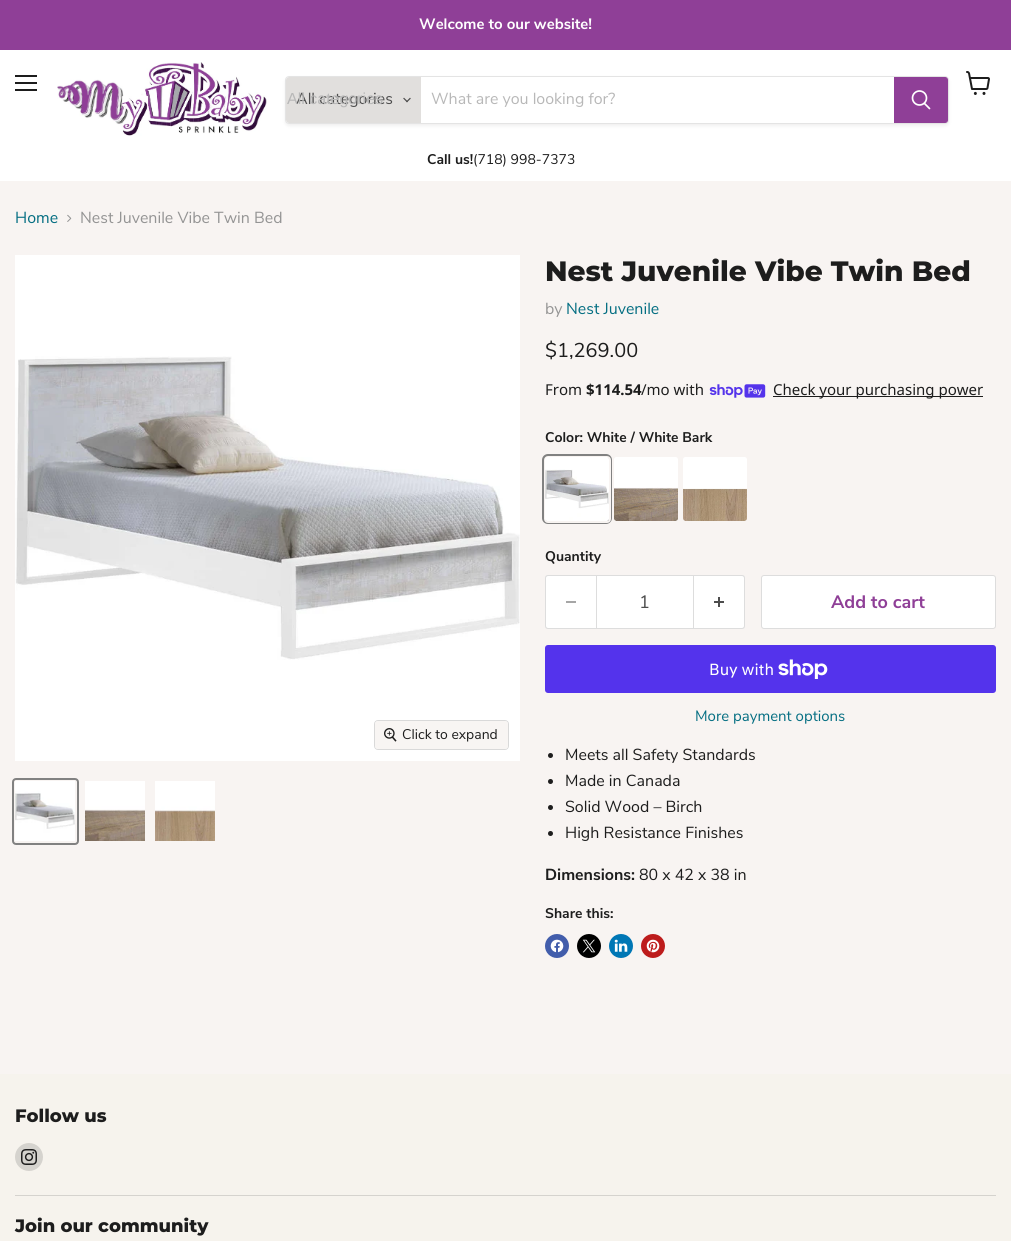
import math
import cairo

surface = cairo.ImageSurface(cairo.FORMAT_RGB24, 1011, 1241)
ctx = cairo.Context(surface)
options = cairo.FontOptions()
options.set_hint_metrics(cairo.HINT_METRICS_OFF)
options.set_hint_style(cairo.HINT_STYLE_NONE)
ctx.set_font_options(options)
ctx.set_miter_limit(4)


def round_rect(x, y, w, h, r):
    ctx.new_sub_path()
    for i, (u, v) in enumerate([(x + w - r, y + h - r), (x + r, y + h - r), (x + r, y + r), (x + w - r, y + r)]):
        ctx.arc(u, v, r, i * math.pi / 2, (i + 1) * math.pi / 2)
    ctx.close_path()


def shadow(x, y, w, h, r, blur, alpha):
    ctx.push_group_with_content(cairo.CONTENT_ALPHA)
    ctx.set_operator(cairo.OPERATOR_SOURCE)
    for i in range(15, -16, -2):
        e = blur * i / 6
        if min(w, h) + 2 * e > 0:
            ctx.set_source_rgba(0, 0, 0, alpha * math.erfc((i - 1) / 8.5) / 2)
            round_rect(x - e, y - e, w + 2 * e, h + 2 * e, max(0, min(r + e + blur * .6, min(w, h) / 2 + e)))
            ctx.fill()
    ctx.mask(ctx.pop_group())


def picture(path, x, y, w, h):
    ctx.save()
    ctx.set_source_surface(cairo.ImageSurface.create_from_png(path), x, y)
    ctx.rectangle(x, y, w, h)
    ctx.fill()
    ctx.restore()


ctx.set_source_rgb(0.969, 0.957, 0.949)
ctx.paint()
ctx.set_source_rgb(0.561, 0.247, 0.592)
ctx.rectangle(0, 0, 1011, 50)
ctx.fill()
ctx.select_font_face("Nunito Sans", cairo.FONT_SLANT_NORMAL, cairo.FONT_WEIGHT_BOLD)
ctx.set_font_size(15)
ctx.set_source_rgb(1, 1, 1)
ctx.move_to(419, 29)
ctx.show_text("Welcome to our website!")
ctx.rectangle(0, 50, 1011, 131)
ctx.fill()
ctx.set_source_rgb(0.114, 0.114, 0.114)
ctx.rectangle(15, 75, 22, 2)
ctx.fill()
ctx.rectangle(15, 82, 22, 2)
ctx.fill()
ctx.rectangle(15, 89, 22, 2)
ctx.fill()
picture("img1.png", 966, 71, 24, 24)
picture("img2.png", 57, 62, 210, 74)
ctx.save()
ctx.set_fill_rule(cairo.FILL_RULE_EVEN_ODD)
ctx.new_path()
ctx.move_to(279, 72)
ctx.line_to(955, 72)
ctx.line_to(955, 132)
ctx.line_to(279, 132)
ctx.close_path()
ctx.move_to(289, 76)
ctx.line_to(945, 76)
ctx.curve_to(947, 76, 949, 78, 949, 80)
ctx.line_to(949, 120)
ctx.curve_to(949, 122, 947, 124, 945, 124)
ctx.line_to(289, 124)
ctx.curve_to(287, 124, 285, 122, 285, 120)
ctx.line_to(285, 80)
ctx.curve_to(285, 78, 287, 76, 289, 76)
ctx.close_path()
ctx.clip()
ctx.set_source_rgb(0.486, 0.478, 0.475)
shadow(285, 78, 664, 48, 4, 1.5, 0.11)
ctx.restore()
round_rect(285.5, 76.5, 663, 47, 3.5)
ctx.set_source_rgba(0.486, 0.478, 0.475, 0.2)
ctx.set_line_width(1)
ctx.stroke()
ctx.set_source_rgb(0.882, 0.875, 0.867)
ctx.new_path()
ctx.move_to(289, 77)
ctx.line_to(421, 77)
ctx.line_to(421, 123)
ctx.line_to(289, 123)
ctx.curve_to(287.5, 123, 286, 121.5, 286, 120)
ctx.line_to(286, 80)
ctx.curve_to(286, 78.5, 287.5, 77, 289, 77)
ctx.close_path()
ctx.fill()
ctx.select_font_face("Nunito Sans")
ctx.set_font_size(16)
ctx.set_source_rgb(0.302, 0.302, 0.302)
ctx.move_to(296, 104)
ctx.show_text("All categories")
ctx.select_font_face("Liberation Sans")
ctx.set_source_rgb(0.722, 0.722, 0.722)
ctx.move_to(287, 104)
ctx.show_text("All categories")
picture("img3.png", 403, 97, 8, 6)
ctx.select_font_face("Nunito Sans")
ctx.move_to(431, 104)
ctx.show_text("What are you looking for?")
ctx.set_source_rgb(0.561, 0.247, 0.592)
ctx.new_path()
ctx.move_to(894.5, 77.5)
ctx.line_to(945, 77.5)
ctx.curve_to(946.5, 77.5, 947.5, 78.5, 947.5, 80)
ctx.line_to(947.5, 120)
ctx.curve_to(947.5, 121.5, 946.5, 122.5, 945, 122.5)
ctx.line_to(894.5, 122.5)
ctx.close_path()
ctx.fill_preserve()
ctx.stroke()
ctx.new_path()
ctx.move_to(929.5, 108.5)
ctx.line_to(924.5, 103.5)
ctx.set_source_rgb(1, 1, 1)
ctx.set_line_width(1.7)
ctx.set_line_cap(cairo.LINE_CAP_ROUND)
ctx.stroke()
ctx.arc(919.5, 98, 7, 0, 2 * math.pi)
ctx.set_line_cap(cairo.LINE_CAP_BUTT)
ctx.stroke()
ctx.select_font_face("Nunito Sans", cairo.FONT_SLANT_NORMAL, cairo.FONT_WEIGHT_BOLD)
ctx.set_font_size(14)
ctx.set_source_rgb(0.114, 0.114, 0.114)
ctx.move_to(427, 164)
ctx.show_text("Call us!")
ctx.select_font_face("Nunito Sans")
ctx.move_to(473, 164)
ctx.show_text("(718) 998-7373")
ctx.set_font_size(16)
ctx.set_source_rgb(0.016, 0.431, 0.51)
ctx.move_to(15, 223)
ctx.show_text("Home")
picture("img4.png", 67, 214, 5, 8)
ctx.set_source_rgb(0.58, 0.58, 0.58)
ctx.move_to(80, 223)
ctx.show_text("Nest Juvenile Vibe Twin Bed")
picture("img5.png", 15, 255, 505, 506)
round_rect(374.5, 720.5, 134, 29, 3.5)
ctx.set_source_rgb(0.851, 0.851, 0.851)
ctx.set_line_width(1)
ctx.stroke()
ctx.set_source_rgba(0.969, 0.957, 0.949, 0.9)
round_rect(375, 721, 133, 28, 3)
ctx.fill()
picture("img6.png", 384, 728, 13, 14)
ctx.set_font_size(14)
ctx.set_source_rgb(0.114, 0.114, 0.114)
ctx.move_to(402, 739)
ctx.show_text("Click to expand")
round_rect(13, 779, 65, 65, 3)
ctx.set_source_rgb(0.506, 0.506, 0.506)
ctx.set_line_width(2)
ctx.stroke()
picture("img7.png", 15, 781, 60, 60)
picture("img8.png", 85, 781, 60, 60)
picture("img9.png", 155, 781, 60, 60)
ctx.select_font_face("Montserrat ExtraBold")
ctx.set_font_size(28)
ctx.set_source_rgb(0.114, 0.114, 0.114)
ctx.move_to(545, 281)
ctx.show_text("Nest Juvenile Vibe Twin Bed")
ctx.select_font_face("Nunito Sans")
ctx.set_font_size(16)
ctx.set_source_rgb(0.58, 0.58, 0.58)
ctx.move_to(545, 314)
ctx.show_text("by")
ctx.set_source_rgb(0.016, 0.431, 0.51)
ctx.move_to(566, 314)
ctx.show_text("Nest Juvenile")
ctx.set_font_size(20)
ctx.set_source_rgb(0.114, 0.114, 0.114)
ctx.move_to(545, 357)
ctx.show_text("$1,269.00")
ctx.select_font_face("Noto Sans")
ctx.set_font_size(15)
ctx.move_to(545, 395)
ctx.show_text("From")
ctx.select_font_face("Noto Sans", cairo.FONT_SLANT_NORMAL, cairo.FONT_WEIGHT_BOLD)
ctx.move_to(586, 395)
ctx.show_text("$114.54")
ctx.select_font_face("Noto Sans")
ctx.move_to(641, 395)
ctx.show_text("/mo with")
picture("img10.png", 709, 384, 57, 14)
ctx.rectangle(773, 396, 210, 1)
ctx.fill()
ctx.move_to(773, 395)
ctx.show_text("Check your purchasing power")
ctx.select_font_face("Nunito Sans", cairo.FONT_SLANT_NORMAL, cairo.FONT_WEIGHT_BOLD)
ctx.set_font_size(14)
ctx.move_to(545, 442)
ctx.show_text("Color: White / White Bark")
round_rect(543.5, 455.5, 67, 67, 4.5)
ctx.set_source_rgb(0.506, 0.506, 0.506)
ctx.set_line_width(3)
ctx.stroke()
round_rect(545, 457, 65, 65, 3)
ctx.set_source_rgb(0.969, 0.957, 0.949)
ctx.set_line_width(2)
ctx.stroke()
picture("img11.png", 545, 457, 64, 64)
ctx.set_source_rgb(1, 1, 1)
round_rect(614, 457, 64, 64, 2.5)
ctx.fill()
picture("img12.png", 614, 487, 64, 34)
round_rect(683, 457, 64, 64, 2.5)
ctx.fill()
picture("img13.png", 683, 488, 64, 33)
ctx.set_source_rgb(0.114, 0.114, 0.114)
ctx.move_to(545, 561)
ctx.show_text("Quantity")
ctx.set_source_rgb(1, 1, 1)
ctx.new_path()
ctx.move_to(548, 575)
ctx.line_to(596, 575)
ctx.line_to(596, 629)
ctx.line_to(548, 629)
ctx.curve_to(546.5, 629, 545, 627.5, 545, 626)
ctx.line_to(545, 578)
ctx.curve_to(545, 576.5, 546.5, 575, 548, 575)
ctx.close_path()
ctx.fill()
ctx.set_source_rgb(0.867, 0.867, 0.867)
ctx.set_fill_rule(cairo.FILL_RULE_EVEN_ODD)
ctx.new_path()
ctx.move_to(548, 575)
ctx.line_to(596, 575)
ctx.line_to(596, 629)
ctx.line_to(548, 629)
ctx.curve_to(546, 629, 545, 628, 545, 626)
ctx.line_to(545, 578)
ctx.curve_to(545, 576, 546, 575, 548, 575)
ctx.close_path()
ctx.move_to(548, 576)
ctx.line_to(596, 576)
ctx.line_to(596, 628)
ctx.line_to(548, 628)
ctx.curve_to(547, 628, 546, 627, 546, 626)
ctx.line_to(546, 578)
ctx.curve_to(546, 577, 547, 576, 548, 576)
ctx.close_path()
ctx.fill()
ctx.set_source_rgb(0.651, 0.651, 0.651)
ctx.rectangle(566, 601, 10, 2)
ctx.fill()
ctx.set_source_rgb(1, 1, 1)
ctx.rectangle(596.5, 575.5, 97, 53)
ctx.fill_preserve()
ctx.set_source_rgb(0.867, 0.867, 0.867)
ctx.set_line_width(1)
ctx.stroke()
ctx.select_font_face("Nunito Sans")
ctx.set_font_size(18)
ctx.set_source_rgb(0.302, 0.302, 0.302)
ctx.move_to(639, 608)
ctx.show_text("1")
ctx.set_source_rgb(1, 1, 1)
ctx.new_path()
ctx.move_to(694, 575)
ctx.line_to(742, 575)
ctx.curve_to(743.5, 575, 745, 576.5, 745, 578)
ctx.line_to(745, 626)
ctx.curve_to(745, 627.5, 743.5, 629, 742, 629)
ctx.line_to(694, 629)
ctx.close_path()
ctx.fill()
ctx.set_source_rgb(0.867, 0.867, 0.867)
ctx.new_path()
ctx.move_to(694, 575)
ctx.line_to(742, 575)
ctx.curve_to(744, 575, 745, 576, 745, 578)
ctx.line_to(745, 626)
ctx.curve_to(745, 628, 744, 629, 742, 629)
ctx.line_to(694, 629)
ctx.close_path()
ctx.move_to(694, 576)
ctx.line_to(742, 576)
ctx.curve_to(743, 576, 744, 577, 744, 578)
ctx.line_to(744, 626)
ctx.curve_to(744, 627, 743, 628, 742, 628)
ctx.line_to(694, 628)
ctx.close_path()
ctx.fill()
picture("img14.png", 714, 597, 10, 10)
ctx.set_source_rgb(1, 1, 1)
round_rect(761.5, 575.5, 234, 53, 2.5)
ctx.fill_preserve()
ctx.set_source_rgb(0.867, 0.867, 0.867)
ctx.stroke()
ctx.select_font_face("Nunito Sans", cairo.FONT_SLANT_NORMAL, cairo.FONT_WEIGHT_BOLD)
ctx.set_source_rgb(0.561, 0.247, 0.592)
ctx.move_to(831, 608)
ctx.show_text("Add to cart")
ctx.set_source_rgb(0.329, 0.2, 0.922)
round_rect(545, 645, 451, 48, 3)
ctx.fill()
ctx.select_font_face("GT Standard")
ctx.set_font_size(16)
ctx.set_source_rgb(1, 1, 1)
ctx.move_to(709, 675)
ctx.show_text("Buy with")
picture("img15.png", 778, 659, 50, 20)
ctx.select_font_face("Nunito Sans")
ctx.set_font_size(15)
ctx.set_source_rgb(0.016, 0.431, 0.51)
ctx.move_to(695, 721)
ctx.show_text("More payment options")
ctx.set_source_rgb(0.114, 0.114, 0.114)
ctx.new_path()
ctx.arc(550.5, 755.5, 2.5, 0, 2 * math.pi)
ctx.fill()
ctx.set_font_size(16)
ctx.move_to(565, 760)
ctx.show_text("Meets all Safety Standards")
ctx.new_path()
ctx.arc(550.5, 781.5, 2.5, 0, 2 * math.pi)
ctx.fill()
ctx.move_to(565, 786)
ctx.show_text("Made in Canada")
ctx.new_path()
ctx.arc(550.5, 807.5, 2.5, 0, 2 * math.pi)
ctx.fill()
ctx.move_to(565, 812)
ctx.show_text("Solid Wood – Birch")
ctx.new_path()
ctx.arc(550.5, 833.5, 2.5, 0, 2 * math.pi)
ctx.fill()
ctx.move_to(565, 838)
ctx.show_text("High Resistance Finishes")
ctx.select_font_face("Nunito Sans", cairo.FONT_SLANT_NORMAL, cairo.FONT_WEIGHT_BOLD)
ctx.move_to(545, 880)
ctx.show_text("Dimensions:")
ctx.select_font_face("Nunito Sans")
ctx.move_to(639, 880)
ctx.show_text("80 x 42 x 38 in")
ctx.select_font_face("Nunito Sans", cairo.FONT_SLANT_NORMAL, cairo.FONT_WEIGHT_BOLD)
ctx.set_font_size(14)
ctx.move_to(545, 918)
ctx.show_text("Share this:")
ctx.set_source_rgb(0.259, 0.365, 0.671)
ctx.new_path()
ctx.arc(557, 946, 12, 0, 2 * math.pi)
ctx.fill()
picture("img16.png", 550, 939, 14, 14)
ctx.set_source_rgb(0, 0, 0)
ctx.arc(589, 946, 12, 0, 2 * math.pi)
ctx.fill()
picture("img17.png", 582, 939, 14, 14)
ctx.set_source_rgb(0, 0.467, 0.71)
ctx.arc(621, 946, 12, 0, 2 * math.pi)
ctx.fill()
picture("img18.png", 614, 939, 14, 13)
ctx.set_source_rgb(0.741, 0.11, 0.11)
ctx.arc(653, 946, 12, 0, 2 * math.pi)
ctx.fill()
picture("img19.png", 646, 939, 14, 14)
ctx.set_source_rgb(0.961, 0.953, 0.929)
ctx.rectangle(0, 1074, 1011, 167)
ctx.fill()
ctx.set_source_rgb(0.835, 0.827, 0.808)
ctx.rectangle(15, 1195, 981, 1)
ctx.fill()
ctx.select_font_face("Montserrat ExtraBold")
ctx.set_font_size(18)
ctx.set_source_rgb(0.114, 0.114, 0.114)
ctx.move_to(15, 1122)
ctx.show_text("Follow us")
ctx.set_source_rgb(0.835, 0.827, 0.808)
ctx.new_path()
ctx.arc(29, 1157, 14, 0, 2 * math.pi)
ctx.fill()
picture("img20.png", 21, 1149, 16, 16)
ctx.set_source_rgb(0.114, 0.114, 0.114)
ctx.move_to(15, 1232)
ctx.show_text("Join our community")
surface.write_to_png("page.png")
